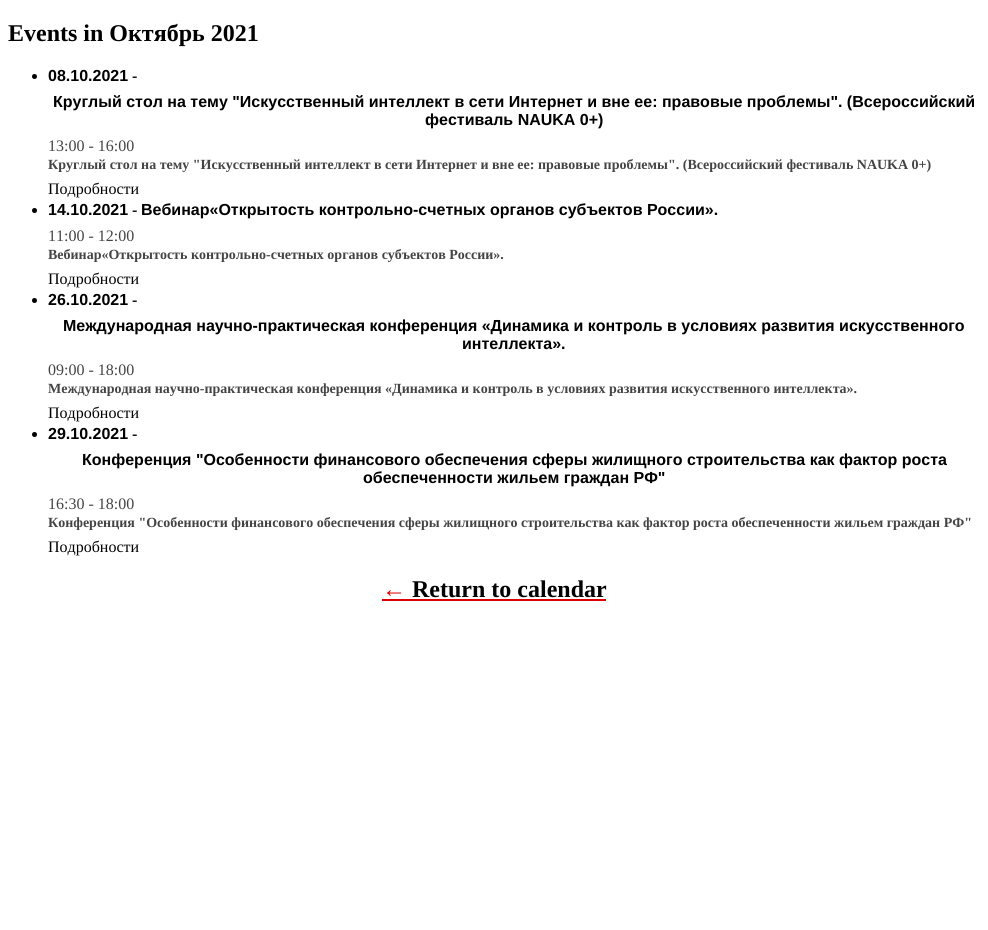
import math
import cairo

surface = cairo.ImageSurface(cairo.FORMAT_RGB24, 988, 930)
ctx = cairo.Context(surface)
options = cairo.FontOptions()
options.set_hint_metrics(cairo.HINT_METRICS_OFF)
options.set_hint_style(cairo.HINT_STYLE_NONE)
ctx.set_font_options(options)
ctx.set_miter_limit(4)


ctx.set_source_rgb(1, 1, 1)
ctx.paint()
ctx.select_font_face("Liberation Serif", cairo.FONT_SLANT_NORMAL, cairo.FONT_WEIGHT_BOLD)
ctx.set_font_size(24)
ctx.set_source_rgb(0, 0, 0)
ctx.move_to(8, 41)
ctx.show_text("Events in Октябрь 2021")
ctx.new_path()
ctx.arc(34.5, 76.5, 2.5, 0, 2 * math.pi)
ctx.fill()
ctx.select_font_face("Liberation Sans", cairo.FONT_SLANT_NORMAL, cairo.FONT_WEIGHT_BOLD)
ctx.set_font_size(16)
ctx.move_to(48, 81)
ctx.show_text("08.10.2021")
ctx.select_font_face("Liberation Serif", cairo.FONT_SLANT_NORMAL, cairo.FONT_WEIGHT_BOLD)
ctx.move_to(132, 81)
ctx.show_text("-")
ctx.select_font_face("Liberation Sans", cairo.FONT_SLANT_NORMAL, cairo.FONT_WEIGHT_BOLD)
ctx.move_to(53, 107)
ctx.show_text("Круглый стол на тему \"Искусственный интеллект в сети Интернет и вне ее: правовые проблемы\". (Всероссийский")
ctx.move_to(425, 125)
ctx.show_text("фестиваль NAUKA 0+)")
ctx.select_font_face("Liberation Serif")
ctx.set_source_rgb(0.267, 0.267, 0.267)
ctx.move_to(48, 151)
ctx.show_text("13:00 - 16:00")
ctx.select_font_face("Liberation Serif", cairo.FONT_SLANT_NORMAL, cairo.FONT_WEIGHT_BOLD)
ctx.set_font_size(14)
ctx.move_to(48, 169)
ctx.show_text("Круглый стол на тему \"Искусственный интеллект в сети Интернет и вне ее: правовые проблемы\". (Всероссийский фестиваль NAUKA 0+)")
ctx.select_font_face("Liberation Serif")
ctx.set_font_size(16)
ctx.set_source_rgb(0, 0, 0)
ctx.move_to(48, 194)
ctx.show_text("Подробности")
ctx.new_path()
ctx.arc(34.5, 210.5, 2.5, 0, 2 * math.pi)
ctx.fill()
ctx.select_font_face("Liberation Sans", cairo.FONT_SLANT_NORMAL, cairo.FONT_WEIGHT_BOLD)
ctx.move_to(48, 215)
ctx.show_text("14.10.2021")
ctx.select_font_face("Liberation Serif", cairo.FONT_SLANT_NORMAL, cairo.FONT_WEIGHT_BOLD)
ctx.move_to(132, 215)
ctx.show_text("-")
ctx.select_font_face("Liberation Sans", cairo.FONT_SLANT_NORMAL, cairo.FONT_WEIGHT_BOLD)
ctx.move_to(141, 215)
ctx.show_text("Вебинар«Открытость контрольно-счетных органов субъектов России».")
ctx.select_font_face("Liberation Serif")
ctx.set_source_rgb(0.267, 0.267, 0.267)
ctx.move_to(48, 241)
ctx.show_text("11:00 - 12:00")
ctx.select_font_face("Liberation Serif", cairo.FONT_SLANT_NORMAL, cairo.FONT_WEIGHT_BOLD)
ctx.set_font_size(14)
ctx.move_to(48, 259)
ctx.show_text("Вебинар«Открытость контрольно-счетных органов субъектов России».")
ctx.select_font_face("Liberation Serif")
ctx.set_font_size(16)
ctx.set_source_rgb(0, 0, 0)
ctx.move_to(48, 284)
ctx.show_text("Подробности")
ctx.new_path()
ctx.arc(34.5, 300.5, 2.5, 0, 2 * math.pi)
ctx.fill()
ctx.select_font_face("Liberation Sans", cairo.FONT_SLANT_NORMAL, cairo.FONT_WEIGHT_BOLD)
ctx.move_to(48, 305)
ctx.show_text("26.10.2021")
ctx.select_font_face("Liberation Serif", cairo.FONT_SLANT_NORMAL, cairo.FONT_WEIGHT_BOLD)
ctx.move_to(132, 305)
ctx.show_text("-")
ctx.select_font_face("Liberation Sans", cairo.FONT_SLANT_NORMAL, cairo.FONT_WEIGHT_BOLD)
ctx.move_to(63, 331)
ctx.show_text("Международная научно-практическая конференция «Динамика и контроль в условиях развития искусственного")
ctx.move_to(462, 349)
ctx.show_text("интеллекта».")
ctx.select_font_face("Liberation Serif")
ctx.set_source_rgb(0.267, 0.267, 0.267)
ctx.move_to(48, 375)
ctx.show_text("09:00 - 18:00")
ctx.select_font_face("Liberation Serif", cairo.FONT_SLANT_NORMAL, cairo.FONT_WEIGHT_BOLD)
ctx.set_font_size(14)
ctx.move_to(48, 393)
ctx.show_text("Международная научно-практическая конференция «Динамика и контроль в условиях развития искусственного интеллекта».")
ctx.select_font_face("Liberation Serif")
ctx.set_font_size(16)
ctx.set_source_rgb(0, 0, 0)
ctx.move_to(48, 418)
ctx.show_text("Подробности")
ctx.new_path()
ctx.arc(34.5, 434.5, 2.5, 0, 2 * math.pi)
ctx.fill()
ctx.select_font_face("Liberation Sans", cairo.FONT_SLANT_NORMAL, cairo.FONT_WEIGHT_BOLD)
ctx.move_to(48, 439)
ctx.show_text("29.10.2021")
ctx.select_font_face("Liberation Serif", cairo.FONT_SLANT_NORMAL, cairo.FONT_WEIGHT_BOLD)
ctx.move_to(132, 439)
ctx.show_text("-")
ctx.select_font_face("Liberation Sans", cairo.FONT_SLANT_NORMAL, cairo.FONT_WEIGHT_BOLD)
ctx.move_to(82, 465)
ctx.show_text("Конференция \"Особенности финансового обеспечения сферы жилищного строительства как фактор роста")
ctx.move_to(363, 483)
ctx.show_text("обеспеченности жильем граждан РФ\"")
ctx.select_font_face("Liberation Serif")
ctx.set_source_rgb(0.267, 0.267, 0.267)
ctx.move_to(48, 509)
ctx.show_text("16:30 - 18:00")
ctx.select_font_face("Liberation Serif", cairo.FONT_SLANT_NORMAL, cairo.FONT_WEIGHT_BOLD)
ctx.set_font_size(14)
ctx.move_to(48, 527)
ctx.show_text("Конференция \"Особенности финансового обеспечения сферы жилищного строительства как фактор роста обеспеченности жильем граждан РФ\"")
ctx.select_font_face("Liberation Serif")
ctx.set_font_size(16)
ctx.set_source_rgb(0, 0, 0)
ctx.move_to(48, 552)
ctx.show_text("Подробности")
ctx.select_font_face("Liberation Serif", cairo.FONT_SLANT_NORMAL, cairo.FONT_WEIGHT_BOLD)
ctx.set_font_size(24)
ctx.set_source_rgb(0.867, 0, 0)
ctx.move_to(382, 597)
ctx.show_text("←")
ctx.rectangle(382, 599, 224, 2)
ctx.fill()
ctx.set_source_rgb(0, 0, 0)
ctx.move_to(412, 597)
ctx.show_text("Return to calendar")
surface.write_to_png("page.png")
